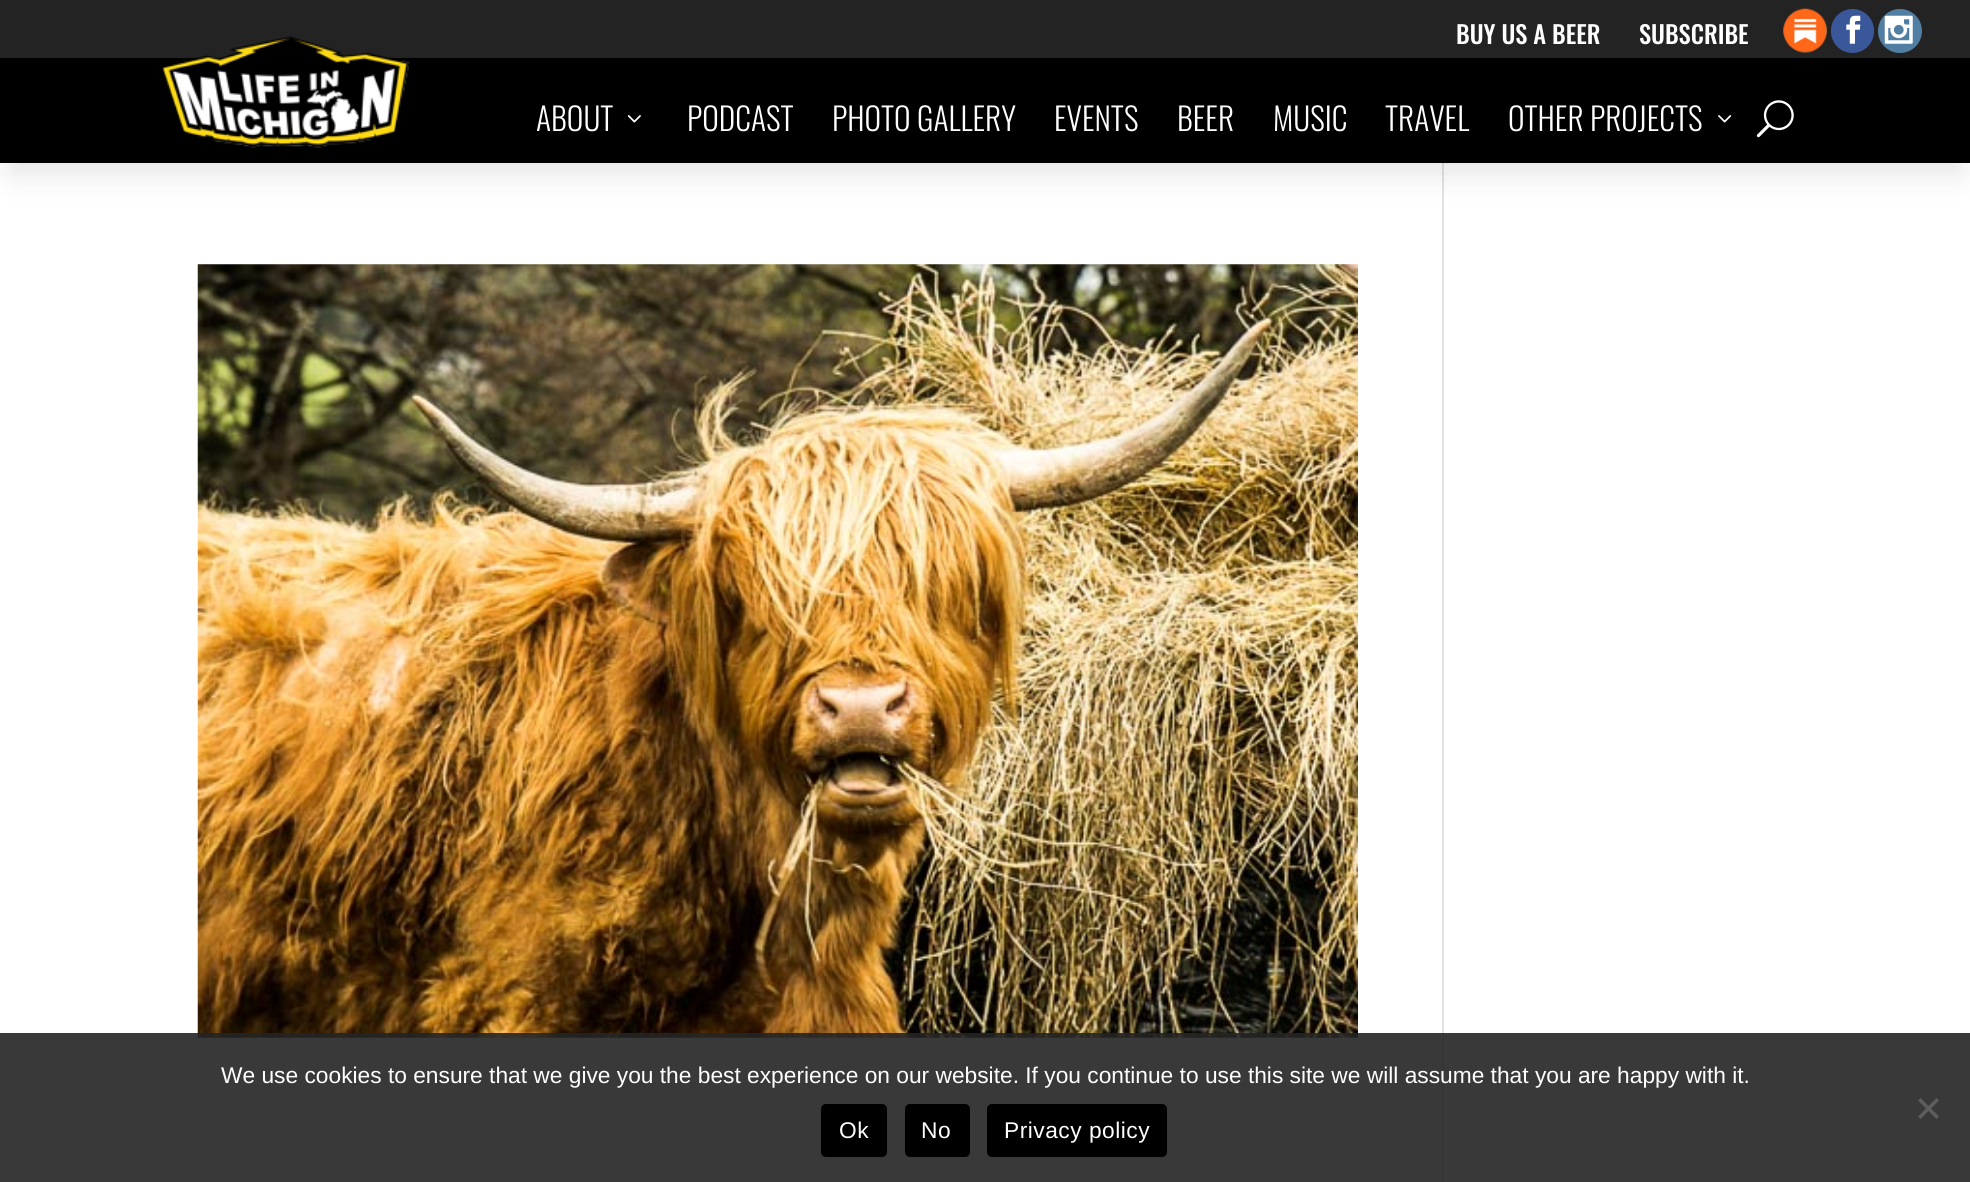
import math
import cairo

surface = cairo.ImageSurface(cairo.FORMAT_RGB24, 1970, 1182)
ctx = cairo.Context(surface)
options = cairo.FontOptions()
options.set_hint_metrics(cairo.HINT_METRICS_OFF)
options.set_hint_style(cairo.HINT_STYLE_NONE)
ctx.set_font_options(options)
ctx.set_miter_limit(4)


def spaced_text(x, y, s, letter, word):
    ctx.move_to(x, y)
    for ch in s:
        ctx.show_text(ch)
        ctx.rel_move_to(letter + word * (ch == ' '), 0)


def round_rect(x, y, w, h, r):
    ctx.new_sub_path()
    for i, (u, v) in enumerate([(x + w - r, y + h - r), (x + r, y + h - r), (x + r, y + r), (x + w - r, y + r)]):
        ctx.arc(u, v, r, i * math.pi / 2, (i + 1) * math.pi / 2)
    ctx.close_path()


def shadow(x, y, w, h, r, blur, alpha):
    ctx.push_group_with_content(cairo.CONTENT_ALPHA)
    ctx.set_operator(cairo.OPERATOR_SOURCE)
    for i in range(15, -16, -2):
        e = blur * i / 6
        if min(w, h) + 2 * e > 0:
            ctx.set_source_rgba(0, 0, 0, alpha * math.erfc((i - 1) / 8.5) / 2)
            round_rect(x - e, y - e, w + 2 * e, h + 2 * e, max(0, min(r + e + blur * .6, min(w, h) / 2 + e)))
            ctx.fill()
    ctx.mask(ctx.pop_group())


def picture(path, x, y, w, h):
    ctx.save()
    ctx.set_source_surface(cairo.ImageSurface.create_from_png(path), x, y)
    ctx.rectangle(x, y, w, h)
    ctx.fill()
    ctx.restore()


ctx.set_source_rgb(1, 1, 1)
ctx.paint()
ctx.set_source_rgb(0.137, 0.137, 0.137)
ctx.rectangle(0, 0, 1970, 58)
ctx.fill()
ctx.select_font_face("Oswald Medium")
ctx.set_font_size(24.5)
ctx.set_source_rgb(1, 1, 1)
ctx.move_to(1456, 44)
ctx.show_text("BUY US A BEER")
ctx.move_to(1639, 44)
ctx.show_text("SUBSCRIBE")
picture("img1.png", 1783, 8, 44, 45)
ctx.set_source_rgb(0.227, 0.341, 0.604)
round_rect(1831, 9, 43, 44, 21.5)
ctx.fill()
picture("img2.png", 1846, 15, 15, 29)
ctx.set_source_rgb(0.318, 0.498, 0.643)
ctx.arc(1900, 31, 22, 0, 2 * math.pi)
ctx.fill()
picture("img3.png", 1884, 15, 29, 29)
ctx.set_source_rgb(0.886, 0.886, 0.886)
ctx.rectangle(1442, 163, 2, 1019)
ctx.fill()
ctx.set_source_rgb(0, 0, 0)
shadow(11, 89, 1949, 84, 0, 16, 0.11)
ctx.set_source_rgb(0, 0, 0)
ctx.rectangle(0, 58, 1970, 105)
ctx.fill()
picture("img4.png", 162, 36, 248, 112)
ctx.select_font_face("Oswald Light")
ctx.set_font_size(31.5)
ctx.set_source_rgb(1, 1, 1)
ctx.move_to(536, 131)
ctx.show_text("ABOUT")
picture("img5.png", 627, 115, 14, 8)
ctx.move_to(687, 131)
ctx.show_text("PODCAST")
ctx.move_to(832, 131)
ctx.show_text("PHOTO GALLERY")
ctx.move_to(1054, 131)
ctx.show_text("EVENTS")
ctx.move_to(1177, 131)
ctx.show_text("BEER")
ctx.move_to(1273, 131)
ctx.show_text("MUSIC")
ctx.move_to(1385, 131)
ctx.show_text("TRAVEL")
ctx.move_to(1508, 131)
ctx.show_text("OTHER PROJECTS")
picture("img6.png", 1718, 115, 14, 8)
picture("img7.png", 1756, 100, 38, 38)
picture("img8.png", 197, 264, 1161, 774)
ctx.set_source_rgba(0.141, 0.141, 0.141, 0.9)
ctx.rectangle(0, 1033, 1970, 149)
ctx.fill()
ctx.select_font_face("Liberation Sans")
ctx.set_font_size(22.75)
ctx.set_source_rgb(1, 1, 1)
ctx.move_to(221, 1083)
ctx.show_text("We use cookies to ensure that we give you the best experience on our website. If you continue to use this site we will assume that you are happy with it.")
ctx.set_source_rgb(0.365, 0.365, 0.365)
ctx.new_path()
ctx.move_to(1936.5, 1098)
ctx.line_to(1939, 1100.5)
ctx.line_to(1920.5, 1119)
ctx.line_to(1918, 1116.5)
ctx.close_path()
ctx.fill()
ctx.new_path()
ctx.move_to(1918, 1100.5)
ctx.line_to(1920.5, 1098)
ctx.line_to(1939, 1116.5)
ctx.line_to(1936.5, 1119)
ctx.close_path()
ctx.fill()
ctx.set_source_rgb(0, 0, 0)
round_rect(821, 1104, 66, 53, 5)
ctx.fill()
ctx.set_source_rgb(1, 1, 1)
spaced_text(839, 1138, "Ok", 0.5, 0)
ctx.set_source_rgb(0, 0, 0)
round_rect(905, 1104, 65, 53, 5)
ctx.fill()
ctx.set_source_rgb(1, 1, 1)
spaced_text(921, 1138, "No", 0.5, 0)
ctx.set_source_rgb(0, 0, 0)
round_rect(987, 1104, 180, 53, 5)
ctx.fill()
ctx.set_source_rgb(1, 1, 1)
spaced_text(1004, 1138, "Privacy policy", 0.5, 0)
surface.write_to_png("page.png")
